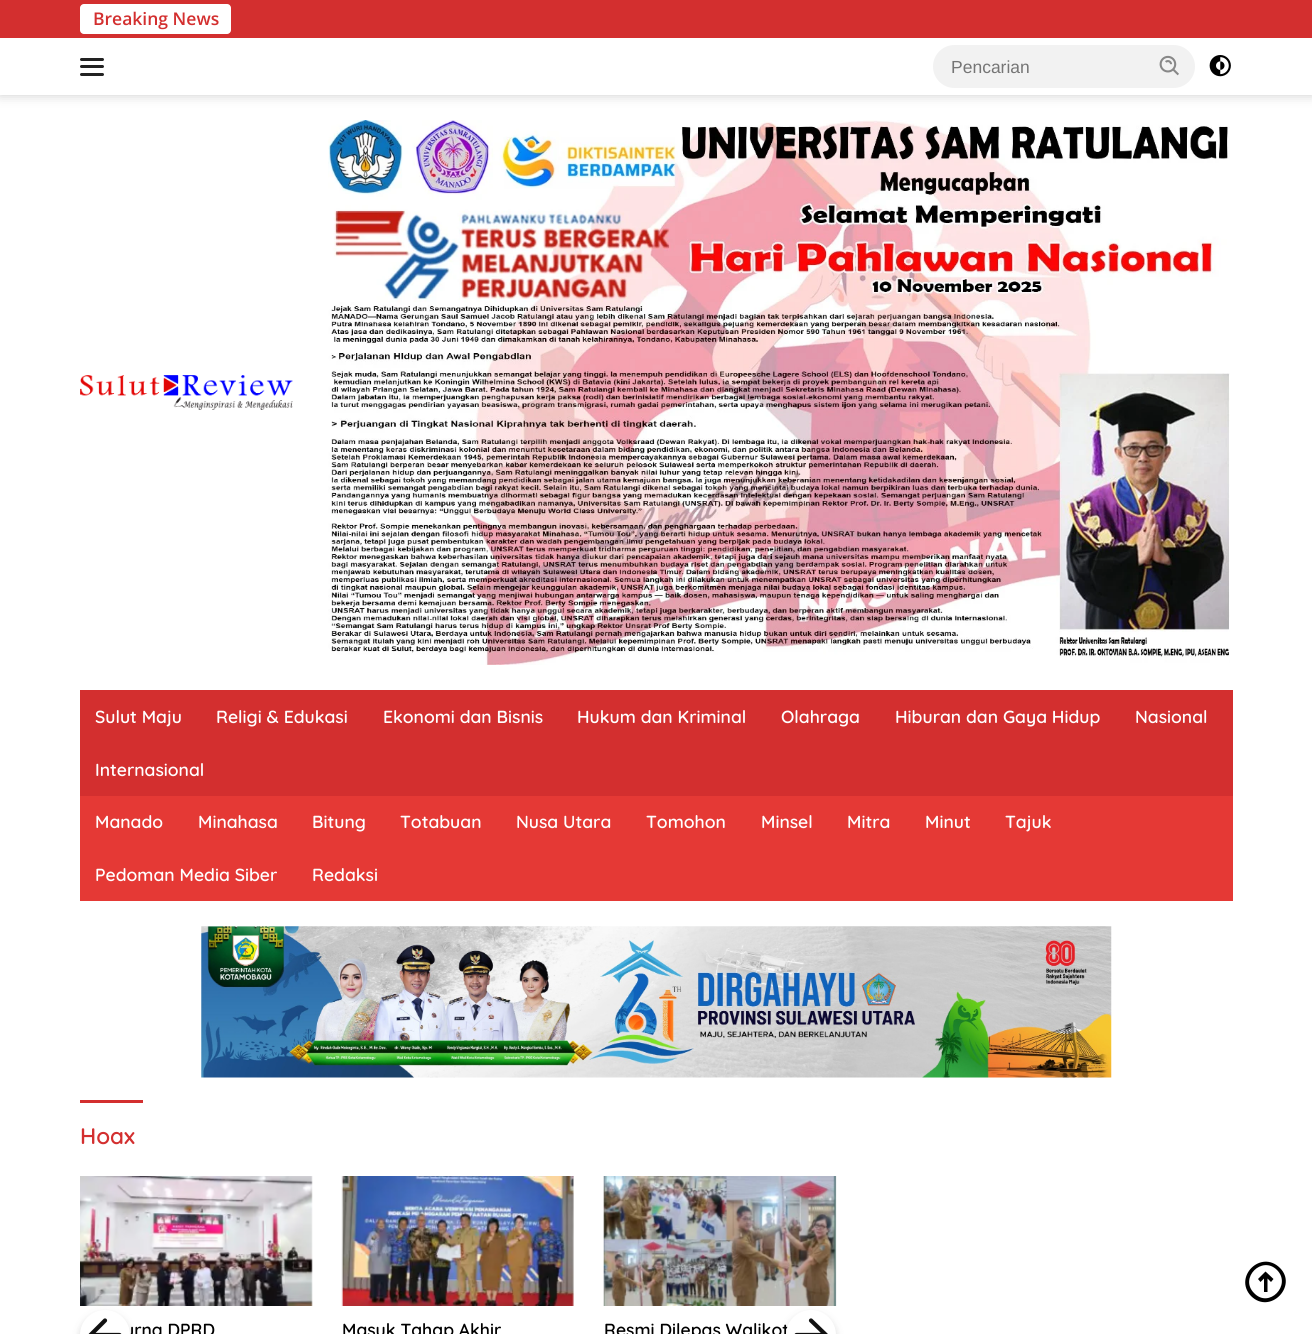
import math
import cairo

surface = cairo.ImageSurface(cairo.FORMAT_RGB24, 1312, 1334)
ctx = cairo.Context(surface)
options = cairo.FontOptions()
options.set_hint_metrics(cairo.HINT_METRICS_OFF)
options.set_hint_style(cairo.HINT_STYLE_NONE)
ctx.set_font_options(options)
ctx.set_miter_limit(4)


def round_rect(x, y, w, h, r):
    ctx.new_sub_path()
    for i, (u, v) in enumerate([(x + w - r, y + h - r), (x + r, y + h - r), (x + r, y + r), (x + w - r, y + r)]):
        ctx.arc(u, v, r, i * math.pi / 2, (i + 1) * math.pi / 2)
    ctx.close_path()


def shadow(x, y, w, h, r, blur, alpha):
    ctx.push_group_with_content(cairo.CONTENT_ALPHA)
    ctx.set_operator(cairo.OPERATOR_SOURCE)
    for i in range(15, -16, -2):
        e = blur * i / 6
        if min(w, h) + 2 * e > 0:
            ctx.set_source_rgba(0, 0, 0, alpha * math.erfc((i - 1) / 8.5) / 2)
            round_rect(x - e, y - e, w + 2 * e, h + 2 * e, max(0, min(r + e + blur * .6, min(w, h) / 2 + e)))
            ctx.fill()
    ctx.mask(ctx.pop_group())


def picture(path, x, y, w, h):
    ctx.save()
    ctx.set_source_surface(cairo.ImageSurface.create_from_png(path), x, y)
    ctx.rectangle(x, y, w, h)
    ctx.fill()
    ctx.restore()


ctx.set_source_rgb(1, 1, 1)
ctx.paint()
ctx.set_source_rgb(0, 0, 0)
shadow(0, 0, 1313, 95, 0, 6, 0.2)
ctx.set_source_rgb(1, 1, 1)
ctx.rectangle(0, 38, 1312, 57)
ctx.fill()
ctx.set_source_rgb(0.827, 0.184, 0.184)
ctx.rectangle(0, 0, 1312, 38)
ctx.fill()
ctx.set_source_rgb(1, 1, 1)
round_rect(80, 4, 151, 30, 4)
ctx.fill()
ctx.select_font_face("Open Sans SemiBold")
ctx.set_font_size(17.5)
ctx.set_source_rgb(0.827, 0.184, 0.184)
ctx.move_to(93, 25)
ctx.show_text("Breaking News")
ctx.set_source_rgb(0.133, 0.133, 0.133)
round_rect(80, 58, 24, 3, 1.5)
ctx.fill()
round_rect(80, 65, 24, 3, 1.5)
ctx.fill()
round_rect(80, 73, 24, 3, 1.5)
ctx.fill()
ctx.set_source_rgb(0.949, 0.949, 0.949)
round_rect(933, 45, 262, 43, 21.5)
ctx.fill()
ctx.select_font_face("Liberation Sans")
ctx.set_source_rgb(0.459, 0.459, 0.459)
ctx.move_to(951, 73)
ctx.show_text("Pencarian")
picture("img1.png", 1159, 55, 20, 21)
picture("img2.png", 1209, 55, 22, 22)
picture("img3.png", 80, 375, 213, 35)
picture("img4.png", 328, 120, 902, 545)
ctx.set_source_rgb(0.898, 0.224, 0.208)
ctx.rectangle(80, 796, 1153, 105)
ctx.fill()
ctx.set_source_rgb(0.827, 0.184, 0.184)
ctx.rectangle(80, 690, 1153, 106)
ctx.fill()
ctx.select_font_face("Quicksand SemiBold")
ctx.set_source_rgb(1, 1, 1)
ctx.move_to(95, 723)
ctx.show_text("Sulut Maju")
ctx.move_to(216, 723)
ctx.show_text("Religi & Edukasi")
ctx.move_to(383, 723)
ctx.show_text("Ekonomi dan Bisnis")
ctx.move_to(577, 723)
ctx.show_text("Hukum dan Kriminal")
ctx.move_to(781, 723)
ctx.show_text("Olahraga")
ctx.move_to(895, 723)
ctx.show_text("Hiburan dan Gaya Hidup")
ctx.move_to(1135, 723)
ctx.show_text("Nasional")
ctx.move_to(95, 776)
ctx.show_text("Internasional")
ctx.move_to(95, 828)
ctx.show_text("Manado")
ctx.move_to(198, 828)
ctx.show_text("Minahasa")
ctx.move_to(312, 828)
ctx.show_text("Bitung")
ctx.move_to(400, 828)
ctx.show_text("Totabuan")
ctx.move_to(516, 828)
ctx.show_text("Nusa Utara")
ctx.move_to(646, 828)
ctx.show_text("Tomohon")
ctx.move_to(761, 828)
ctx.show_text("Minsel")
ctx.move_to(847, 828)
ctx.show_text("Mitra")
ctx.move_to(925, 828)
ctx.show_text("Minut")
ctx.move_to(1005, 828)
ctx.show_text("Tajuk")
ctx.move_to(95, 881)
ctx.show_text("Pedoman Media Siber")
ctx.move_to(312, 881)
ctx.show_text("Redaksi")
picture("img5.png", 201, 926, 911, 152)
ctx.set_source_rgb(0.827, 0.184, 0.184)
ctx.rectangle(80, 1100, 63, 3)
ctx.fill()
ctx.set_font_size(22.5)
ctx.move_to(80, 1144)
ctx.show_text("Hoax")
picture("img6.png", 80, 1176, 233, 130)
ctx.set_source_rgb(0.2, 0.2, 0.2)
shadow(80, 1314, 50, 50, 25, 4, 0.2)
ctx.set_font_size(17.5)
ctx.set_source_rgb(0, 0, 0)
ctx.move_to(124, 1336)
ctx.show_text("urna DPRD")
ctx.set_source_rgb(1, 1, 1)
round_rect(80, 1310, 50, 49, 25)
ctx.fill()
ctx.new_path()
ctx.move_to(119.5, 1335)
ctx.line_to(90.5, 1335)
ctx.move_to(105, 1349.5)
ctx.line_to(90.5, 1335)
ctx.line_to(105, 1320.5)
ctx.set_source_rgb(0.067, 0.067, 0.067)
ctx.set_line_width(4.2)
ctx.set_line_cap(cairo.LINE_CAP_ROUND)
ctx.set_line_join(cairo.LINE_JOIN_ROUND)
ctx.stroke()
picture("img8.png", 603, 1176, 234, 130)
ctx.set_source_rgb(0.2, 0.2, 0.2)
shadow(786, 1314, 50, 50, 25, 4, 0.2)
ctx.set_source_rgb(0, 0, 0)
ctx.move_to(604, 1336)
ctx.show_text("Resmi Dilepas Walikot")
ctx.set_source_rgb(1, 1, 1)
round_rect(786, 1310, 50, 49, 25)
ctx.fill()
ctx.new_path()
ctx.move_to(796.5, 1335)
ctx.line_to(826, 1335)
ctx.move_to(811, 1320.5)
ctx.line_to(826, 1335)
ctx.line_to(811, 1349.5)
ctx.set_source_rgb(0.067, 0.067, 0.067)
ctx.stroke()
picture("img7.png", 341, 1176, 233, 130)
ctx.set_source_rgb(0, 0, 0)
ctx.move_to(342, 1336)
ctx.show_text("Masuk Tahap Akhir")
ctx.new_path()
ctx.move_to(1271, 1282)
ctx.line_to(1273.5, 1279)
ctx.line_to(1265.5, 1271.5)
ctx.line_to(1258, 1279)
ctx.line_to(1260.5, 1282)
ctx.line_to(1264, 1278.5)
ctx.line_to(1264, 1292)
ctx.line_to(1267.5, 1292)
ctx.line_to(1267.5, 1278.5)
ctx.close_path()
ctx.fill()
ctx.set_fill_rule(cairo.FILL_RULE_EVEN_ODD)
ctx.new_path()
ctx.move_to(1280, 1268)
ctx.curve_to(1261, 1249, 1233, 1277, 1251, 1296)
ctx.curve_to(1270, 1315, 1298, 1286, 1280, 1268)
ctx.close_path()
ctx.move_to(1277, 1270)
ctx.curve_to(1262, 1255, 1239, 1278, 1254, 1293)
ctx.curve_to(1269, 1309, 1292, 1285, 1277, 1270)
ctx.close_path()
ctx.fill()
surface.write_to_png("page.png")
